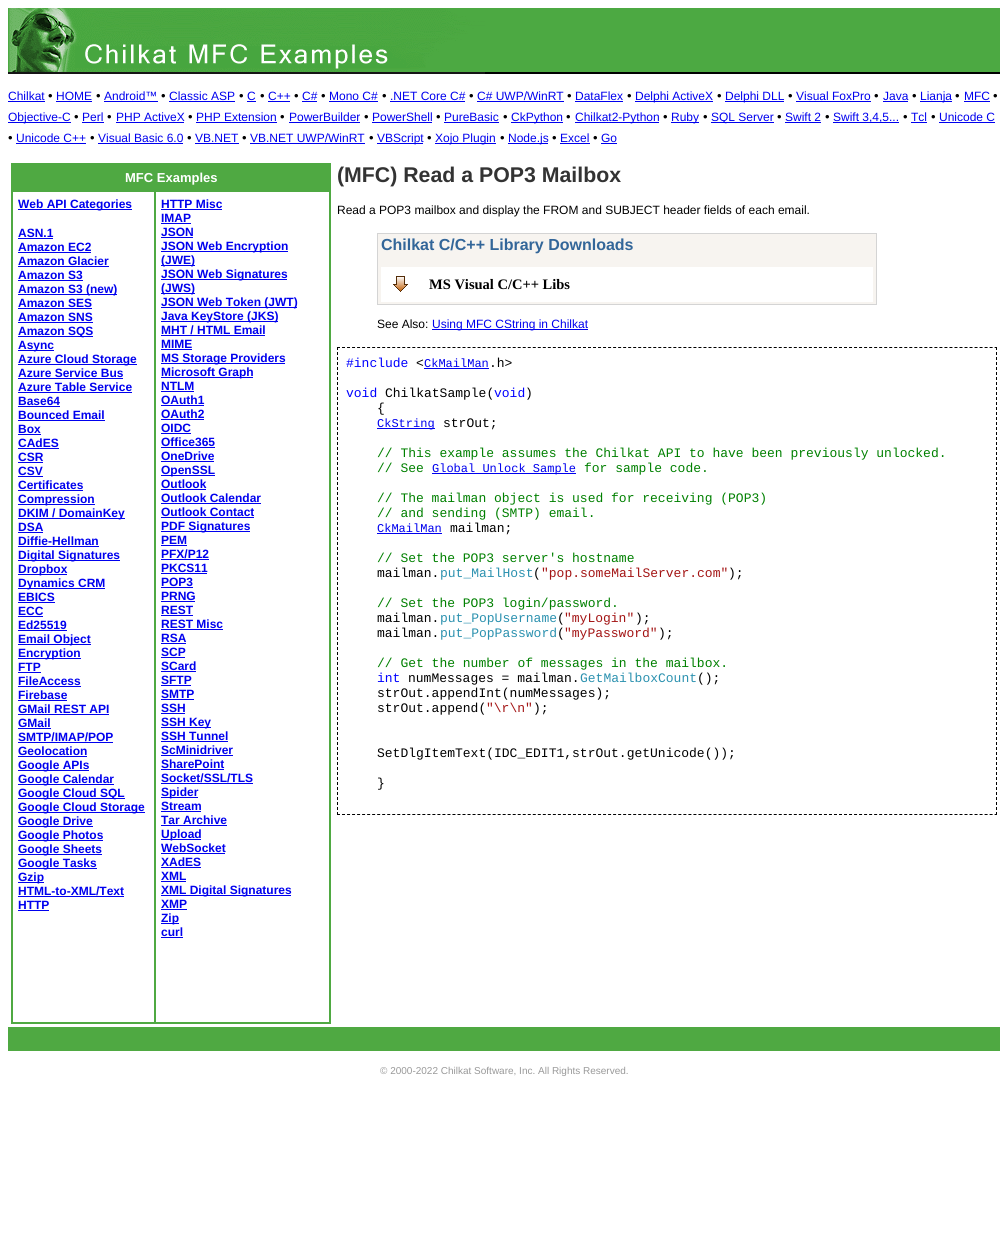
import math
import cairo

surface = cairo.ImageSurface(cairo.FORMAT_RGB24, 1008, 1260)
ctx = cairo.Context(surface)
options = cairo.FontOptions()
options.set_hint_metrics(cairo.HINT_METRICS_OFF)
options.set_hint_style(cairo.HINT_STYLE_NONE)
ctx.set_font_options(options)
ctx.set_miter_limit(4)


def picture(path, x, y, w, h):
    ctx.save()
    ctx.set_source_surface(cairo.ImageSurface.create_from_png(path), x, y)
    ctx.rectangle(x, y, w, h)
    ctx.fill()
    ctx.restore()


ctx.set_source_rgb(1, 1, 1)
ctx.paint()
picture("img1.png", 485, 8, 515, 66)
picture("img2.png", 8, 8, 477, 66)
ctx.select_font_face("Liberation Sans")
ctx.set_font_size(12)
ctx.set_source_rgb(0, 0, 0.933)
ctx.move_to(8, 100)
ctx.show_text("Chilkat")
ctx.rectangle(8, 101, 37, 1)
ctx.fill()
ctx.set_font_size(13)
ctx.set_source_rgb(0, 0, 0)
ctx.move_to(48, 100)
ctx.show_text("•")
ctx.set_font_size(12)
ctx.set_source_rgb(0, 0, 0.933)
ctx.move_to(56, 100)
ctx.show_text("HOME")
ctx.rectangle(56, 101, 36, 1)
ctx.fill()
ctx.set_font_size(13)
ctx.set_source_rgb(0, 0, 0)
ctx.move_to(96, 100)
ctx.show_text("•")
ctx.set_font_size(12)
ctx.set_source_rgb(0, 0, 0.933)
ctx.move_to(104, 100)
ctx.show_text("Android™")
ctx.rectangle(104, 101, 54, 1)
ctx.fill()
ctx.set_font_size(13)
ctx.set_source_rgb(0, 0, 0)
ctx.move_to(161, 100)
ctx.show_text("•")
ctx.set_font_size(12)
ctx.set_source_rgb(0, 0, 0.933)
ctx.move_to(169, 100)
ctx.show_text("Classic ASP")
ctx.rectangle(169, 101, 66, 1)
ctx.fill()
ctx.set_font_size(13)
ctx.set_source_rgb(0, 0, 0)
ctx.move_to(239, 100)
ctx.show_text("•")
ctx.set_font_size(12)
ctx.set_source_rgb(0, 0, 0.933)
ctx.move_to(247, 100)
ctx.show_text("C")
ctx.rectangle(247, 101, 9, 1)
ctx.fill()
ctx.set_font_size(13)
ctx.set_source_rgb(0, 0, 0)
ctx.move_to(260, 100)
ctx.show_text("•")
ctx.set_font_size(12)
ctx.set_source_rgb(0, 0, 0.933)
ctx.move_to(268, 100)
ctx.show_text("C++")
ctx.rectangle(268, 101, 22, 1)
ctx.fill()
ctx.set_font_size(13)
ctx.set_source_rgb(0, 0, 0)
ctx.move_to(294, 100)
ctx.show_text("•")
ctx.set_font_size(12)
ctx.set_source_rgb(0, 0, 0.933)
ctx.move_to(302, 100)
ctx.show_text("C#")
ctx.rectangle(302, 101, 15, 1)
ctx.fill()
ctx.set_font_size(13)
ctx.set_source_rgb(0, 0, 0)
ctx.move_to(321, 100)
ctx.show_text("•")
ctx.set_font_size(12)
ctx.set_source_rgb(0, 0, 0.933)
ctx.move_to(329, 100)
ctx.show_text("Mono C#")
ctx.rectangle(329, 101, 49, 1)
ctx.fill()
ctx.set_font_size(13)
ctx.set_source_rgb(0, 0, 0)
ctx.move_to(382, 100)
ctx.show_text("•")
ctx.set_font_size(12)
ctx.set_source_rgb(0, 0, 0.933)
ctx.move_to(390, 100)
ctx.show_text(".NET Core C#")
ctx.rectangle(390, 101, 75, 1)
ctx.fill()
ctx.set_font_size(13)
ctx.set_source_rgb(0, 0, 0)
ctx.move_to(469, 100)
ctx.show_text("•")
ctx.set_font_size(12)
ctx.set_source_rgb(0, 0, 0.933)
ctx.move_to(477, 100)
ctx.show_text("C# UWP/WinRT")
ctx.rectangle(477, 101, 87, 1)
ctx.fill()
ctx.set_font_size(13)
ctx.set_source_rgb(0, 0, 0)
ctx.move_to(567, 100)
ctx.show_text("•")
ctx.set_font_size(12)
ctx.set_source_rgb(0, 0, 0.933)
ctx.move_to(575, 100)
ctx.show_text("DataFlex")
ctx.rectangle(575, 101, 48, 1)
ctx.fill()
ctx.set_font_size(13)
ctx.set_source_rgb(0, 0, 0)
ctx.move_to(627, 100)
ctx.show_text("•")
ctx.set_source_rgb(0, 0, 0.933)
ctx.rectangle(635, 101, 78, 1)
ctx.fill()
ctx.set_font_size(12)
ctx.move_to(635, 100)
ctx.show_text("Delphi ActiveX")
ctx.set_font_size(13)
ctx.set_source_rgb(0, 0, 0)
ctx.move_to(717, 100)
ctx.show_text("•")
ctx.set_source_rgb(0, 0, 0.933)
ctx.rectangle(725, 101, 59, 1)
ctx.fill()
ctx.set_font_size(12)
ctx.move_to(725, 100)
ctx.show_text("Delphi DLL")
ctx.set_font_size(13)
ctx.set_source_rgb(0, 0, 0)
ctx.move_to(788, 100)
ctx.show_text("•")
ctx.set_font_size(12)
ctx.set_source_rgb(0, 0, 0.933)
ctx.move_to(796, 100)
ctx.show_text("Visual FoxPro")
ctx.rectangle(796, 101, 75, 1)
ctx.fill()
ctx.set_font_size(13)
ctx.set_source_rgb(0, 0, 0)
ctx.move_to(874, 100)
ctx.show_text("•")
ctx.set_font_size(12)
ctx.set_source_rgb(0, 0, 0.933)
ctx.move_to(883, 100)
ctx.show_text("Java")
ctx.rectangle(883, 101, 25, 1)
ctx.fill()
ctx.set_font_size(13)
ctx.set_source_rgb(0, 0, 0)
ctx.move_to(912, 100)
ctx.show_text("•")
ctx.set_source_rgb(0, 0, 0.933)
ctx.rectangle(920, 101, 32, 1)
ctx.fill()
ctx.set_font_size(12)
ctx.move_to(920, 100)
ctx.show_text("Lianja")
ctx.set_font_size(13)
ctx.set_source_rgb(0, 0, 0)
ctx.move_to(955, 100)
ctx.show_text("•")
ctx.set_font_size(12)
ctx.set_source_rgb(0, 0, 0.933)
ctx.move_to(964, 100)
ctx.show_text("MFC")
ctx.rectangle(964, 101, 26, 1)
ctx.fill()
ctx.set_font_size(13)
ctx.set_source_rgb(0, 0, 0)
ctx.move_to(993, 100)
ctx.show_text("•")
ctx.set_source_rgb(0, 0, 0.933)
ctx.rectangle(8, 122, 63, 1)
ctx.fill()
ctx.set_font_size(12)
ctx.move_to(8, 121)
ctx.show_text("Objective-C")
ctx.set_font_size(13)
ctx.set_source_rgb(0, 0, 0)
ctx.move_to(74, 121)
ctx.show_text("•")
ctx.set_font_size(12)
ctx.set_source_rgb(0, 0, 0.933)
ctx.move_to(82, 121)
ctx.show_text("Perl")
ctx.rectangle(82, 122, 22, 1)
ctx.fill()
ctx.set_font_size(13)
ctx.set_source_rgb(0, 0, 0)
ctx.move_to(107, 121)
ctx.show_text("•")
ctx.set_font_size(12)
ctx.set_source_rgb(0, 0, 0.933)
ctx.move_to(116, 121)
ctx.show_text("PHP ActiveX")
ctx.rectangle(116, 122, 68, 1)
ctx.fill()
ctx.set_font_size(13)
ctx.set_source_rgb(0, 0, 0)
ctx.move_to(188, 121)
ctx.show_text("•")
ctx.set_font_size(12)
ctx.set_source_rgb(0, 0, 0.933)
ctx.move_to(196, 121)
ctx.show_text("PHP Extension")
ctx.rectangle(196, 122, 81, 1)
ctx.fill()
ctx.set_font_size(13)
ctx.set_source_rgb(0, 0, 0)
ctx.move_to(280, 121)
ctx.show_text("•")
ctx.set_font_size(12)
ctx.set_source_rgb(0, 0, 0.933)
ctx.move_to(289, 121)
ctx.show_text("PowerBuilder")
ctx.rectangle(289, 122, 71, 1)
ctx.fill()
ctx.set_font_size(13)
ctx.set_source_rgb(0, 0, 0)
ctx.move_to(364, 121)
ctx.show_text("•")
ctx.set_font_size(12)
ctx.set_source_rgb(0, 0, 0.933)
ctx.move_to(372, 121)
ctx.show_text("PowerShell")
ctx.rectangle(372, 122, 60, 1)
ctx.fill()
ctx.set_font_size(13)
ctx.set_source_rgb(0, 0, 0)
ctx.move_to(436, 121)
ctx.show_text("•")
ctx.set_font_size(12)
ctx.set_source_rgb(0, 0, 0.933)
ctx.move_to(444, 121)
ctx.show_text("PureBasic")
ctx.rectangle(444, 122, 55, 1)
ctx.fill()
ctx.set_font_size(13)
ctx.set_source_rgb(0, 0, 0)
ctx.move_to(503, 121)
ctx.show_text("•")
ctx.set_source_rgb(0, 0, 0.933)
ctx.rectangle(511, 122, 52, 1)
ctx.fill()
ctx.set_font_size(12)
ctx.move_to(511, 121)
ctx.show_text("CkPython")
ctx.set_font_size(13)
ctx.set_source_rgb(0, 0, 0)
ctx.move_to(566, 121)
ctx.show_text("•")
ctx.set_source_rgb(0, 0, 0.933)
ctx.rectangle(575, 122, 84, 1)
ctx.fill()
ctx.set_font_size(12)
ctx.move_to(575, 121)
ctx.show_text("Chilkat2-Python")
ctx.set_font_size(13)
ctx.set_source_rgb(0, 0, 0)
ctx.move_to(663, 121)
ctx.show_text("•")
ctx.set_source_rgb(0, 0, 0.933)
ctx.rectangle(671, 122, 28, 1)
ctx.fill()
ctx.set_font_size(12)
ctx.move_to(671, 121)
ctx.show_text("Ruby")
ctx.set_font_size(13)
ctx.set_source_rgb(0, 0, 0)
ctx.move_to(703, 121)
ctx.show_text("•")
ctx.set_source_rgb(0, 0, 0.933)
ctx.rectangle(711, 122, 63, 1)
ctx.fill()
ctx.set_font_size(12)
ctx.move_to(711, 121)
ctx.show_text("SQL Server")
ctx.set_font_size(13)
ctx.set_source_rgb(0, 0, 0)
ctx.move_to(777, 121)
ctx.show_text("•")
ctx.set_font_size(12)
ctx.set_source_rgb(0, 0, 0.933)
ctx.move_to(785, 121)
ctx.show_text("Swift 2")
ctx.rectangle(785, 122, 36, 1)
ctx.fill()
ctx.set_font_size(13)
ctx.set_source_rgb(0, 0, 0)
ctx.move_to(825, 121)
ctx.show_text("•")
ctx.set_source_rgb(0, 0, 0.933)
ctx.rectangle(833, 122, 66, 1)
ctx.fill()
ctx.set_font_size(12)
ctx.move_to(833, 121)
ctx.show_text("Swift 3,4,5...")
ctx.set_font_size(13)
ctx.set_source_rgb(0, 0, 0)
ctx.move_to(903, 121)
ctx.show_text("•")
ctx.set_font_size(12)
ctx.set_source_rgb(0, 0, 0.933)
ctx.move_to(911, 121)
ctx.show_text("Tcl")
ctx.rectangle(911, 122, 16, 1)
ctx.fill()
ctx.set_font_size(13)
ctx.set_source_rgb(0, 0, 0)
ctx.move_to(931, 121)
ctx.show_text("•")
ctx.set_font_size(12)
ctx.set_source_rgb(0, 0, 0.933)
ctx.move_to(939, 121)
ctx.show_text("Unicode C")
ctx.rectangle(939, 122, 56, 1)
ctx.fill()
ctx.set_font_size(13)
ctx.set_source_rgb(0, 0, 0)
ctx.move_to(8, 142)
ctx.show_text("•")
ctx.set_font_size(12)
ctx.set_source_rgb(0, 0, 0.933)
ctx.move_to(16, 142)
ctx.show_text("Unicode C++")
ctx.rectangle(16, 143, 70, 1)
ctx.fill()
ctx.set_font_size(13)
ctx.set_source_rgb(0, 0, 0)
ctx.move_to(90, 142)
ctx.show_text("•")
ctx.set_font_size(12)
ctx.set_source_rgb(0, 0, 0.933)
ctx.move_to(98, 142)
ctx.show_text("Visual Basic 6.0")
ctx.rectangle(98, 143, 85, 1)
ctx.fill()
ctx.set_font_size(13)
ctx.set_source_rgb(0, 0, 0)
ctx.move_to(187, 142)
ctx.show_text("•")
ctx.set_font_size(12)
ctx.set_source_rgb(0, 0, 0.933)
ctx.move_to(195, 142)
ctx.show_text("VB.NET")
ctx.rectangle(195, 143, 44, 1)
ctx.fill()
ctx.set_font_size(13)
ctx.set_source_rgb(0, 0, 0)
ctx.move_to(242, 142)
ctx.show_text("•")
ctx.set_font_size(12)
ctx.set_source_rgb(0, 0, 0.933)
ctx.move_to(250, 142)
ctx.show_text("VB.NET UWP/WinRT")
ctx.rectangle(250, 143, 115, 1)
ctx.fill()
ctx.set_font_size(13)
ctx.set_source_rgb(0, 0, 0)
ctx.move_to(369, 142)
ctx.show_text("•")
ctx.set_source_rgb(0, 0, 0.933)
ctx.rectangle(377, 143, 46, 1)
ctx.fill()
ctx.set_font_size(12)
ctx.move_to(377, 142)
ctx.show_text("VBScript")
ctx.set_font_size(13)
ctx.set_source_rgb(0, 0, 0)
ctx.move_to(427, 142)
ctx.show_text("•")
ctx.set_source_rgb(0, 0, 0.933)
ctx.rectangle(435, 143, 61, 1)
ctx.fill()
ctx.set_font_size(12)
ctx.move_to(435, 142)
ctx.show_text("Xojo Plugin")
ctx.set_font_size(13)
ctx.set_source_rgb(0, 0, 0)
ctx.move_to(500, 142)
ctx.show_text("•")
ctx.set_source_rgb(0, 0, 0.933)
ctx.rectangle(508, 143, 40, 1)
ctx.fill()
ctx.set_font_size(12)
ctx.move_to(508, 142)
ctx.show_text("Node.js")
ctx.set_font_size(13)
ctx.set_source_rgb(0, 0, 0)
ctx.move_to(552, 142)
ctx.show_text("•")
ctx.set_font_size(12)
ctx.set_source_rgb(0, 0, 0.933)
ctx.move_to(560, 142)
ctx.show_text("Excel")
ctx.rectangle(560, 143, 30, 1)
ctx.fill()
ctx.set_font_size(13)
ctx.set_source_rgb(0, 0, 0)
ctx.move_to(593, 142)
ctx.show_text("•")
ctx.set_font_size(12)
ctx.set_source_rgb(0, 0, 0.933)
ctx.move_to(601, 142)
ctx.show_text("Go")
ctx.rectangle(601, 143, 16, 1)
ctx.fill()
ctx.rectangle(11.5, 163.5, 319, 860)
ctx.set_source_rgb(0.31, 0.663, 0.259)
ctx.set_line_width(1)
ctx.stroke()
ctx.rectangle(12, 164, 318, 27)
ctx.fill()
ctx.select_font_face("Liberation Sans", cairo.FONT_SLANT_NORMAL, cairo.FONT_WEIGHT_BOLD)
ctx.set_font_size(13)
ctx.set_source_rgb(1, 1, 1)
ctx.move_to(125, 182)
ctx.show_text("MFC Examples")
ctx.rectangle(12.5, 191.5, 142, 831)
ctx.set_source_rgb(0.31, 0.663, 0.259)
ctx.stroke()
ctx.set_source_rgb(0, 0, 0.933)
ctx.rectangle(18, 209, 114, 1)
ctx.fill()
ctx.set_font_size(12)
ctx.move_to(18, 208)
ctx.show_text("Web API Categories")
ctx.move_to(18, 237)
ctx.show_text("ASN.1")
ctx.rectangle(18, 238, 35, 1)
ctx.fill()
ctx.move_to(18, 251)
ctx.show_text("Amazon EC2")
ctx.rectangle(18, 252, 73, 1)
ctx.fill()
ctx.move_to(18, 265)
ctx.show_text("Amazon Glacier")
ctx.rectangle(18, 266, 91, 1)
ctx.fill()
ctx.move_to(18, 279)
ctx.show_text("Amazon S3")
ctx.rectangle(18, 280, 65, 1)
ctx.fill()
ctx.rectangle(18, 294, 99, 1)
ctx.fill()
ctx.move_to(18, 293)
ctx.show_text("Amazon S3 (new)")
ctx.move_to(18, 307)
ctx.show_text("Amazon SES")
ctx.rectangle(18, 308, 74, 1)
ctx.fill()
ctx.move_to(18, 321)
ctx.show_text("Amazon SNS")
ctx.rectangle(18, 322, 75, 1)
ctx.fill()
ctx.rectangle(18, 336, 75, 1)
ctx.fill()
ctx.move_to(18, 335)
ctx.show_text("Amazon SQS")
ctx.rectangle(18, 350, 36, 1)
ctx.fill()
ctx.move_to(18, 349)
ctx.show_text("Async")
ctx.rectangle(18, 364, 119, 1)
ctx.fill()
ctx.move_to(18, 363)
ctx.show_text("Azure Cloud Storage")
ctx.move_to(18, 377)
ctx.show_text("Azure Service Bus")
ctx.rectangle(18, 378, 105, 1)
ctx.fill()
ctx.move_to(18, 391)
ctx.show_text("Azure Table Service")
ctx.rectangle(18, 392, 114, 1)
ctx.fill()
ctx.move_to(18, 405)
ctx.show_text("Base64")
ctx.rectangle(18, 406, 42, 1)
ctx.fill()
ctx.move_to(18, 419)
ctx.show_text("Bounced Email")
ctx.rectangle(18, 420, 87, 1)
ctx.fill()
ctx.move_to(18, 433)
ctx.show_text("Box")
ctx.rectangle(18, 434, 23, 1)
ctx.fill()
ctx.move_to(18, 447)
ctx.show_text("CAdES")
ctx.rectangle(18, 448, 41, 1)
ctx.fill()
ctx.move_to(18, 461)
ctx.show_text("CSR")
ctx.rectangle(18, 462, 25, 1)
ctx.fill()
ctx.move_to(18, 475)
ctx.show_text("CSV")
ctx.rectangle(18, 476, 25, 1)
ctx.fill()
ctx.move_to(18, 489)
ctx.show_text("Certificates")
ctx.rectangle(18, 490, 65, 1)
ctx.fill()
ctx.rectangle(18, 504, 77, 1)
ctx.fill()
ctx.move_to(18, 503)
ctx.show_text("Compression")
ctx.rectangle(18, 518, 107, 1)
ctx.fill()
ctx.move_to(18, 517)
ctx.show_text("DKIM / DomainKey")
ctx.move_to(18, 531)
ctx.show_text("DSA")
ctx.rectangle(18, 532, 25, 1)
ctx.fill()
ctx.move_to(18, 545)
ctx.show_text("Diffie-Hellman")
ctx.rectangle(18, 546, 81, 1)
ctx.fill()
ctx.rectangle(18, 560, 102, 1)
ctx.fill()
ctx.move_to(18, 559)
ctx.show_text("Digital Signatures")
ctx.rectangle(18, 574, 49, 1)
ctx.fill()
ctx.move_to(18, 573)
ctx.show_text("Dropbox")
ctx.rectangle(18, 588, 87, 1)
ctx.fill()
ctx.move_to(18, 587)
ctx.show_text("Dynamics CRM")
ctx.move_to(18, 601)
ctx.show_text("EBICS")
ctx.rectangle(18, 602, 37, 1)
ctx.fill()
ctx.move_to(18, 615)
ctx.show_text("ECC")
ctx.rectangle(18, 616, 25, 1)
ctx.fill()
ctx.move_to(18, 629)
ctx.show_text("Ed25519")
ctx.rectangle(18, 630, 49, 1)
ctx.fill()
ctx.rectangle(18, 644, 73, 1)
ctx.fill()
ctx.move_to(18, 643)
ctx.show_text("Email Object")
ctx.rectangle(18, 658, 63, 1)
ctx.fill()
ctx.move_to(18, 657)
ctx.show_text("Encryption")
ctx.move_to(18, 671)
ctx.show_text("FTP")
ctx.rectangle(18, 672, 23, 1)
ctx.fill()
ctx.move_to(18, 685)
ctx.show_text("FileAccess")
ctx.rectangle(18, 686, 63, 1)
ctx.fill()
ctx.move_to(18, 699)
ctx.show_text("Firebase")
ctx.rectangle(18, 700, 49, 1)
ctx.fill()
ctx.move_to(18, 713)
ctx.show_text("GMail REST API")
ctx.rectangle(18, 714, 91, 1)
ctx.fill()
ctx.move_to(18, 727)
ctx.show_text("GMail")
ctx.rectangle(18, 728, 33, 1)
ctx.fill()
ctx.move_to(18, 741)
ctx.show_text("SMTP/IMAP/POP")
ctx.rectangle(18, 742, 95, 1)
ctx.fill()
ctx.move_to(18, 755)
ctx.show_text("Geolocation")
ctx.rectangle(18, 756, 69, 1)
ctx.fill()
ctx.rectangle(18, 770, 71, 1)
ctx.fill()
ctx.move_to(18, 769)
ctx.show_text("Google APIs")
ctx.rectangle(18, 784, 96, 1)
ctx.fill()
ctx.move_to(18, 783)
ctx.show_text("Google Calendar")
ctx.rectangle(18, 798, 107, 1)
ctx.fill()
ctx.move_to(18, 797)
ctx.show_text("Google Cloud SQL")
ctx.rectangle(18, 812, 127, 1)
ctx.fill()
ctx.move_to(18, 811)
ctx.show_text("Google Cloud Storage")
ctx.rectangle(18, 826, 75, 1)
ctx.fill()
ctx.move_to(18, 825)
ctx.show_text("Google Drive")
ctx.rectangle(18, 840, 85, 1)
ctx.fill()
ctx.move_to(18, 839)
ctx.show_text("Google Photos")
ctx.rectangle(18, 854, 84, 1)
ctx.fill()
ctx.move_to(18, 853)
ctx.show_text("Google Sheets")
ctx.rectangle(18, 868, 79, 1)
ctx.fill()
ctx.move_to(18, 867)
ctx.show_text("Google Tasks")
ctx.rectangle(18, 882, 26, 1)
ctx.fill()
ctx.move_to(18, 881)
ctx.show_text("Gzip")
ctx.move_to(18, 895)
ctx.show_text("HTML-to-XML/Text")
ctx.rectangle(18, 896, 106, 1)
ctx.fill()
ctx.move_to(18, 909)
ctx.show_text("HTTP")
ctx.rectangle(18, 910, 31, 1)
ctx.fill()
ctx.rectangle(155.5, 191.5, 174, 831)
ctx.set_source_rgb(0.31, 0.663, 0.259)
ctx.stroke()
ctx.set_source_rgb(0, 0, 0.933)
ctx.move_to(161, 208)
ctx.show_text("HTTP Misc")
ctx.rectangle(161, 209, 61, 1)
ctx.fill()
ctx.move_to(161, 222)
ctx.show_text("IMAP")
ctx.rectangle(161, 223, 30, 1)
ctx.fill()
ctx.move_to(161, 236)
ctx.show_text("JSON")
ctx.rectangle(161, 237, 32, 1)
ctx.fill()
ctx.rectangle(161, 251, 127, 1)
ctx.fill()
ctx.move_to(161, 250)
ctx.show_text("JSON Web Encryption")
ctx.rectangle(161, 265, 34, 1)
ctx.fill()
ctx.move_to(161, 264)
ctx.show_text("(JWE)")
ctx.rectangle(161, 279, 126, 1)
ctx.fill()
ctx.move_to(161, 278)
ctx.show_text("JSON Web Signatures")
ctx.rectangle(161, 293, 34, 1)
ctx.fill()
ctx.move_to(161, 292)
ctx.show_text("(JWS)")
ctx.rectangle(161, 307, 136, 1)
ctx.fill()
ctx.move_to(161, 306)
ctx.show_text("JSON Web Token (JWT)")
ctx.rectangle(161, 321, 117, 1)
ctx.fill()
ctx.move_to(161, 320)
ctx.show_text("Java KeyStore (JKS)")
ctx.move_to(161, 334)
ctx.show_text("MHT / HTML Email")
ctx.rectangle(161, 335, 104, 1)
ctx.fill()
ctx.move_to(161, 348)
ctx.show_text("MIME")
ctx.rectangle(161, 349, 31, 1)
ctx.fill()
ctx.rectangle(161, 363, 124, 1)
ctx.fill()
ctx.move_to(161, 362)
ctx.show_text("MS Storage Providers")
ctx.rectangle(161, 377, 92, 1)
ctx.fill()
ctx.move_to(161, 376)
ctx.show_text("Microsoft Graph")
ctx.move_to(161, 390)
ctx.show_text("NTLM")
ctx.rectangle(161, 391, 33, 1)
ctx.fill()
ctx.move_to(161, 404)
ctx.show_text("OAuth1")
ctx.rectangle(161, 405, 43, 1)
ctx.fill()
ctx.move_to(161, 418)
ctx.show_text("OAuth2")
ctx.rectangle(161, 419, 43, 1)
ctx.fill()
ctx.move_to(161, 432)
ctx.show_text("OIDC")
ctx.rectangle(161, 433, 30, 1)
ctx.fill()
ctx.move_to(161, 446)
ctx.show_text("Office365")
ctx.rectangle(161, 447, 54, 1)
ctx.fill()
ctx.move_to(161, 460)
ctx.show_text("OneDrive")
ctx.rectangle(161, 461, 53, 1)
ctx.fill()
ctx.rectangle(161, 475, 54, 1)
ctx.fill()
ctx.move_to(161, 474)
ctx.show_text("OpenSSL")
ctx.move_to(161, 488)
ctx.show_text("Outlook")
ctx.rectangle(161, 489, 45, 1)
ctx.fill()
ctx.move_to(161, 502)
ctx.show_text("Outlook Calendar")
ctx.rectangle(161, 503, 100, 1)
ctx.fill()
ctx.move_to(161, 516)
ctx.show_text("Outlook Contact")
ctx.rectangle(161, 517, 93, 1)
ctx.fill()
ctx.rectangle(161, 531, 89, 1)
ctx.fill()
ctx.move_to(161, 530)
ctx.show_text("PDF Signatures")
ctx.move_to(161, 544)
ctx.show_text("PEM")
ctx.rectangle(161, 545, 26, 1)
ctx.fill()
ctx.move_to(161, 558)
ctx.show_text("PFX/P12")
ctx.rectangle(161, 559, 48, 1)
ctx.fill()
ctx.move_to(161, 572)
ctx.show_text("PKCS11")
ctx.rectangle(161, 573, 46, 1)
ctx.fill()
ctx.move_to(161, 586)
ctx.show_text("POP3")
ctx.rectangle(161, 587, 32, 1)
ctx.fill()
ctx.move_to(161, 600)
ctx.show_text("PRNG")
ctx.rectangle(161, 601, 34, 1)
ctx.fill()
ctx.move_to(161, 614)
ctx.show_text("REST")
ctx.rectangle(161, 615, 32, 1)
ctx.fill()
ctx.move_to(161, 628)
ctx.show_text("REST Misc")
ctx.rectangle(161, 629, 62, 1)
ctx.fill()
ctx.move_to(161, 642)
ctx.show_text("RSA")
ctx.rectangle(161, 643, 25, 1)
ctx.fill()
ctx.move_to(161, 656)
ctx.show_text("SCP")
ctx.rectangle(161, 657, 24, 1)
ctx.fill()
ctx.move_to(161, 670)
ctx.show_text("SCard")
ctx.rectangle(161, 671, 35, 1)
ctx.fill()
ctx.move_to(161, 684)
ctx.show_text("SFTP")
ctx.rectangle(161, 685, 30, 1)
ctx.fill()
ctx.move_to(161, 698)
ctx.show_text("SMTP")
ctx.rectangle(161, 699, 33, 1)
ctx.fill()
ctx.move_to(161, 712)
ctx.show_text("SSH")
ctx.rectangle(161, 713, 24, 1)
ctx.fill()
ctx.rectangle(161, 727, 50, 1)
ctx.fill()
ctx.move_to(161, 726)
ctx.show_text("SSH Key")
ctx.move_to(161, 740)
ctx.show_text("SSH Tunnel")
ctx.rectangle(161, 741, 67, 1)
ctx.fill()
ctx.move_to(161, 754)
ctx.show_text("ScMinidriver")
ctx.rectangle(161, 755, 72, 1)
ctx.fill()
ctx.move_to(161, 768)
ctx.show_text("SharePoint")
ctx.rectangle(161, 769, 63, 1)
ctx.fill()
ctx.move_to(161, 782)
ctx.show_text("Socket/SSL/TLS")
ctx.rectangle(161, 783, 92, 1)
ctx.fill()
ctx.rectangle(161, 797, 37, 1)
ctx.fill()
ctx.move_to(161, 796)
ctx.show_text("Spider")
ctx.move_to(161, 810)
ctx.show_text("Stream")
ctx.rectangle(161, 811, 40, 1)
ctx.fill()
ctx.move_to(161, 824)
ctx.show_text("Tar Archive")
ctx.rectangle(161, 825, 66, 1)
ctx.fill()
ctx.rectangle(161, 839, 40, 1)
ctx.fill()
ctx.move_to(161, 838)
ctx.show_text("Upload")
ctx.move_to(161, 852)
ctx.show_text("WebSocket")
ctx.rectangle(161, 853, 64, 1)
ctx.fill()
ctx.move_to(161, 866)
ctx.show_text("XAdES")
ctx.rectangle(161, 867, 40, 1)
ctx.fill()
ctx.move_to(161, 880)
ctx.show_text("XML")
ctx.rectangle(161, 881, 25, 1)
ctx.fill()
ctx.rectangle(161, 895, 130, 1)
ctx.fill()
ctx.move_to(161, 894)
ctx.show_text("XML Digital Signatures")
ctx.move_to(161, 908)
ctx.show_text("XMP")
ctx.rectangle(161, 909, 26, 1)
ctx.fill()
ctx.rectangle(161, 923, 18, 1)
ctx.fill()
ctx.move_to(161, 922)
ctx.show_text("Zip")
ctx.move_to(161, 936)
ctx.show_text("curl")
ctx.rectangle(161, 937, 22, 1)
ctx.fill()
ctx.set_font_size(21.3)
ctx.set_source_rgb(0.2, 0.2, 0.2)
ctx.move_to(337, 182)
ctx.show_text("(MFC) Read a POP3 Mailbox")
ctx.select_font_face("Liberation Sans")
ctx.set_font_size(12)
ctx.set_source_rgb(0, 0, 0)
ctx.move_to(337, 214)
ctx.show_text("Read a POP3 mailbox and display the FROM and SUBJECT header fields of each email.")
ctx.set_source_rgb(0.965, 0.957, 0.941)
ctx.rectangle(378, 234, 498, 70)
ctx.fill()
ctx.set_source_rgb(0.831, 0.831, 0.831)
ctx.rectangle(377, 233, 500, 1)
ctx.fill()
ctx.rectangle(876, 233, 1, 72)
ctx.fill()
ctx.rectangle(377, 304, 500, 1)
ctx.fill()
ctx.rectangle(377, 233, 1, 72)
ctx.fill()
ctx.select_font_face("Liberation Sans", cairo.FONT_SLANT_NORMAL, cairo.FONT_WEIGHT_BOLD)
ctx.set_font_size(16)
ctx.set_source_rgb(0.2, 0.4, 0.6)
ctx.move_to(381, 250)
ctx.show_text("Chilkat C/C++ Library Downloads")
ctx.set_source_rgb(1, 1, 1)
ctx.rectangle(381, 267, 492, 35)
ctx.fill()
picture("img3.png", 393, 276, 15, 16)
ctx.select_font_face("Liberation Serif", cairo.FONT_SLANT_NORMAL, cairo.FONT_WEIGHT_BOLD)
ctx.set_font_size(14.5)
ctx.set_source_rgb(0, 0, 0)
ctx.move_to(429, 289)
ctx.show_text("MS Visual C/C++ Libs")
ctx.select_font_face("Liberation Sans")
ctx.set_font_size(12)
ctx.move_to(377, 328)
ctx.show_text("See Also:")
ctx.set_source_rgb(0, 0, 0.933)
ctx.rectangle(432, 329, 156, 1)
ctx.fill()
ctx.move_to(432, 328)
ctx.show_text("Using MFC CString in Chilkat")
ctx.new_path()
ctx.move_to(337, 347.5)
ctx.line_to(997, 347.5)
ctx.set_source_rgb(0, 0, 0)
ctx.set_dash([3, 2.02])
ctx.stroke()
ctx.new_path()
ctx.move_to(996.5, 347)
ctx.line_to(996.5, 815)
ctx.set_dash([3, 2])
ctx.stroke()
ctx.new_path()
ctx.move_to(337, 814.5)
ctx.line_to(997, 814.5)
ctx.set_dash([3, 2.02])
ctx.stroke()
ctx.new_path()
ctx.move_to(337.5, 347)
ctx.line_to(337.5, 815)
ctx.set_dash([3, 2])
ctx.stroke()
ctx.select_font_face("Liberation Mono")
ctx.set_font_size(13)
ctx.set_source_rgb(0, 0, 1)
ctx.move_to(346, 367)
ctx.show_text("#include")
ctx.set_source_rgb(0, 0, 0)
ctx.move_to(416, 367)
ctx.show_text("<")
ctx.set_font_size(12)
ctx.set_source_rgb(0, 0, 0.933)
ctx.move_to(424, 367)
ctx.show_text("CkMailMan")
ctx.rectangle(424, 368, 65, 1)
ctx.fill()
ctx.set_font_size(13)
ctx.set_source_rgb(0, 0, 0)
ctx.move_to(489, 367)
ctx.show_text(".h>")
ctx.set_source_rgb(0, 0, 1)
ctx.move_to(346, 397)
ctx.show_text("void")
ctx.set_source_rgb(0, 0, 0)
ctx.move_to(385, 397)
ctx.show_text("ChilkatSample(")
ctx.set_source_rgb(0, 0, 1)
ctx.move_to(494, 397)
ctx.show_text("void")
ctx.set_source_rgb(0, 0, 0)
ctx.move_to(525, 397)
ctx.show_text(")")
ctx.move_to(377, 412)
ctx.show_text("{")
ctx.set_source_rgb(0, 0, 0.933)
ctx.rectangle(377, 428, 58, 1)
ctx.fill()
ctx.set_font_size(12)
ctx.move_to(377, 427)
ctx.show_text("CkString")
ctx.set_font_size(13)
ctx.set_source_rgb(0, 0, 0)
ctx.move_to(443, 427)
ctx.show_text("strOut;")
ctx.set_source_rgb(0, 0.502, 0)
ctx.move_to(377, 457)
ctx.show_text("// This example assumes the Chilkat API to have been previously unlocked.")
ctx.move_to(377, 472)
ctx.show_text("// See")
ctx.set_source_rgb(0, 0, 0.933)
ctx.rectangle(432, 473, 144, 1)
ctx.fill()
ctx.set_font_size(12)
ctx.move_to(432, 472)
ctx.show_text("Global Unlock Sample")
ctx.set_font_size(13)
ctx.set_source_rgb(0, 0.502, 0)
ctx.move_to(584, 472)
ctx.show_text("for sample code.")
ctx.move_to(377, 502)
ctx.show_text("// The mailman object is used for receiving (POP3)")
ctx.move_to(377, 517)
ctx.show_text("// and sending (SMTP) email.")
ctx.set_font_size(12)
ctx.set_source_rgb(0, 0, 0.933)
ctx.move_to(377, 532)
ctx.show_text("CkMailMan")
ctx.rectangle(377, 533, 65, 1)
ctx.fill()
ctx.set_font_size(13)
ctx.set_source_rgb(0, 0, 0)
ctx.move_to(450, 532)
ctx.show_text("mailman;")
ctx.set_source_rgb(0, 0.502, 0)
ctx.move_to(377, 562)
ctx.show_text("// Set the POP3 server's hostname")
ctx.set_source_rgb(0, 0, 0)
ctx.move_to(377, 577)
ctx.show_text("mailman.")
ctx.set_source_rgb(0.169, 0.569, 0.686)
ctx.move_to(440, 577)
ctx.show_text("put_MailHost")
ctx.set_source_rgb(0, 0, 0)
ctx.move_to(533, 577)
ctx.show_text("(")
ctx.set_source_rgb(0.639, 0.082, 0.082)
ctx.move_to(541, 577)
ctx.show_text("\"pop.someMailServer.com\"")
ctx.set_source_rgb(0, 0, 0)
ctx.move_to(728, 577)
ctx.show_text(");")
ctx.set_source_rgb(0, 0.502, 0)
ctx.move_to(377, 607)
ctx.show_text("// Set the POP3 login/password.")
ctx.set_source_rgb(0, 0, 0)
ctx.move_to(377, 622)
ctx.show_text("mailman.")
ctx.set_source_rgb(0.169, 0.569, 0.686)
ctx.move_to(440, 622)
ctx.show_text("put_PopUsername")
ctx.set_source_rgb(0, 0, 0)
ctx.move_to(557, 622)
ctx.show_text("(")
ctx.set_source_rgb(0.639, 0.082, 0.082)
ctx.move_to(564, 622)
ctx.show_text("\"myLogin\"")
ctx.set_source_rgb(0, 0, 0)
ctx.move_to(635, 622)
ctx.show_text(");")
ctx.move_to(377, 637)
ctx.show_text("mailman.")
ctx.set_source_rgb(0.169, 0.569, 0.686)
ctx.move_to(440, 637)
ctx.show_text("put_PopPassword")
ctx.set_source_rgb(0, 0, 0)
ctx.move_to(557, 637)
ctx.show_text("(")
ctx.set_source_rgb(0.639, 0.082, 0.082)
ctx.move_to(564, 637)
ctx.show_text("\"myPassword\"")
ctx.set_source_rgb(0, 0, 0)
ctx.move_to(658, 637)
ctx.show_text(");")
ctx.set_source_rgb(0, 0.502, 0)
ctx.move_to(377, 667)
ctx.show_text("// Get the number of messages in the mailbox.")
ctx.set_source_rgb(0, 0, 1)
ctx.move_to(377, 682)
ctx.show_text("int")
ctx.set_source_rgb(0, 0, 0)
ctx.move_to(408, 682)
ctx.show_text("numMessages = mailman.")
ctx.set_source_rgb(0.169, 0.569, 0.686)
ctx.move_to(580, 682)
ctx.show_text("GetMailboxCount")
ctx.set_source_rgb(0, 0, 0)
ctx.move_to(697, 682)
ctx.show_text("();")
ctx.move_to(377, 697)
ctx.show_text("strOut.appendInt(numMessages);")
ctx.move_to(377, 712)
ctx.show_text("strOut.append(")
ctx.set_source_rgb(0.639, 0.082, 0.082)
ctx.move_to(486, 712)
ctx.show_text("\"\\r\\n\"")
ctx.set_source_rgb(0, 0, 0)
ctx.move_to(533, 712)
ctx.show_text(");")
ctx.move_to(377, 757)
ctx.show_text("SetDlgItemText(IDC_EDIT1,strOut.getUnicode());")
ctx.move_to(377, 787)
ctx.show_text("}")
ctx.set_source_rgb(0.31, 0.663, 0.259)
ctx.rectangle(8, 1027, 992, 24)
ctx.fill()
ctx.select_font_face("Liberation Sans")
ctx.set_font_size(10)
ctx.set_source_rgb(0.6, 0.6, 0.6)
ctx.move_to(380, 1074)
ctx.show_text("© 2000-2022 Chilkat Software, Inc. All Rights Reserved.")
surface.write_to_png("page.png")
